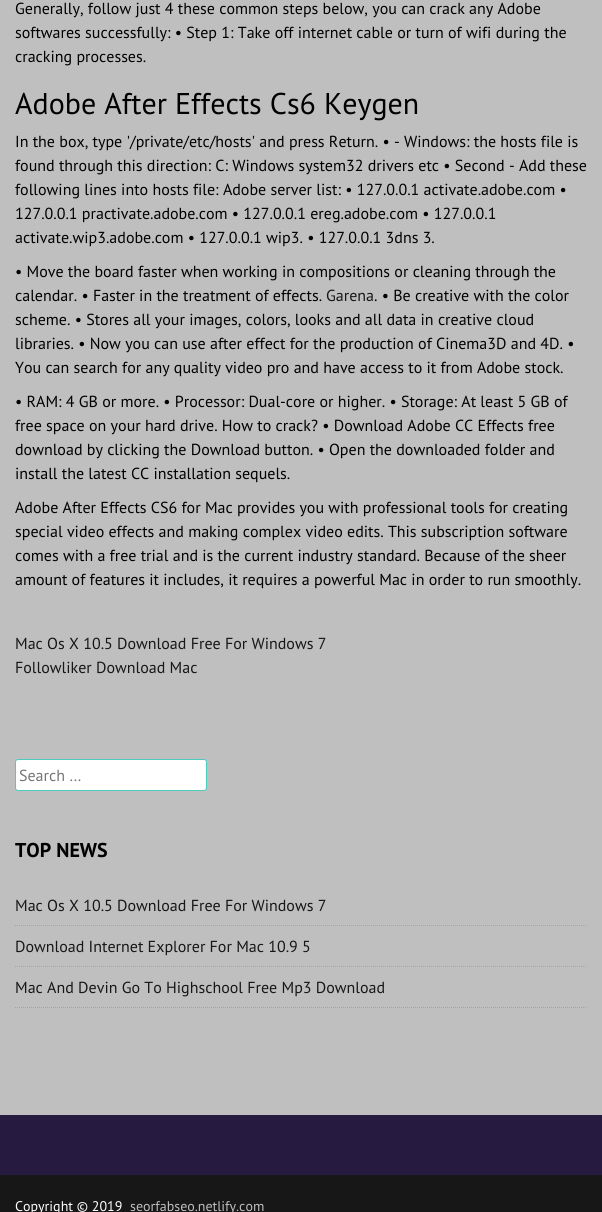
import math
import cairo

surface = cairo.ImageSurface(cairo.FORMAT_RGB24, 602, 1212)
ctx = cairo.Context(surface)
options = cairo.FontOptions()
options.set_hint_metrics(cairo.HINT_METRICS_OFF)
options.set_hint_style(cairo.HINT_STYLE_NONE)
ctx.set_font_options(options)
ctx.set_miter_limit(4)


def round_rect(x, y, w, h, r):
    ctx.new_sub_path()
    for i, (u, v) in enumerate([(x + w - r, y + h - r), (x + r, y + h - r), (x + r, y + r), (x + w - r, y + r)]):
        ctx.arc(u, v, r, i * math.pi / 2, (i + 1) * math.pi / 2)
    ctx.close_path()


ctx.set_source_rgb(0.749, 0.749, 0.749)
ctx.paint()
ctx.select_font_face("PT Sans")
ctx.set_font_size(16)
ctx.set_source_rgb(0, 0, 0)
ctx.move_to(15, 14)
ctx.show_text("Generally, follow just 4 these common steps below, you can crack any Adobe")
ctx.move_to(15, 38)
ctx.show_text("softwares successfully: • Step 1: Take off internet cable or turn of wifi during the")
ctx.move_to(15, 62)
ctx.show_text("cracking processes.")
ctx.set_font_size(30)
ctx.move_to(15, 114)
ctx.show_text("Adobe After Effects Cs6 Keygen")
ctx.set_font_size(16)
ctx.move_to(15, 147)
ctx.show_text("In the box, type '/private/etc/hosts' and press Return. • - Windows: the hosts file is")
ctx.move_to(15, 171)
ctx.show_text("found through this direction: C: Windows system32 drivers etc • Second - Add these")
ctx.move_to(15, 195)
ctx.show_text("following lines into hosts file: Adobe server list: • 127.0.0.1 activate.adobe.com •")
ctx.move_to(15, 219)
ctx.show_text("127.0.0.1 practivate.adobe.com • 127.0.0.1 ereg.adobe.com • 127.0.0.1")
ctx.move_to(15, 243)
ctx.show_text("activate.wip3.adobe.com • 127.0.0.1 wip3. • 127.0.0.1 3dns 3.")
ctx.move_to(15, 277)
ctx.show_text("• Move the board faster when working in compositions or cleaning through the")
ctx.move_to(15, 301)
ctx.show_text("calendar. • Faster in the treatment of effects.")
ctx.set_source_rgb(0.09, 0.09, 0.09)
ctx.move_to(326, 301)
ctx.show_text("Garena")
ctx.set_source_rgb(0, 0, 0)
ctx.move_to(374, 301)
ctx.show_text(". • Be creative with the color")
ctx.move_to(15, 325)
ctx.show_text("scheme. • Stores all your images, colors, looks and all data in creative cloud")
ctx.move_to(15, 349)
ctx.show_text("libraries. • Now you can use after effect for the production of Cinema3D and 4D. •")
ctx.move_to(15, 373)
ctx.show_text("You can search for any quality video pro and have access to it from Adobe stock.")
ctx.move_to(15, 407)
ctx.show_text("• RAM: 4 GB or more. • Processor: Dual-core or higher. • Storage: At least 5 GB of")
ctx.move_to(15, 431)
ctx.show_text("free space on your hard drive. How to crack? • Download Adobe CC Effects free")
ctx.move_to(15, 455)
ctx.show_text("download by clicking the Download button. • Open the downloaded folder and")
ctx.move_to(15, 479)
ctx.show_text("install the latest CC installation sequels.")
ctx.move_to(15, 513)
ctx.show_text("Adobe After Effects CS6 for Mac provides you with professional tools for creating")
ctx.move_to(15, 537)
ctx.show_text("special video effects and making complex video edits. This subscription software")
ctx.move_to(15, 561)
ctx.show_text("comes with a free trial and is the current industry standard. Because of the sheer")
ctx.move_to(15, 585)
ctx.show_text("amount of features it includes, it requires a powerful Mac in order to run smoothly.")
ctx.set_source_rgb(0.09, 0.09, 0.09)
ctx.move_to(15, 649)
ctx.show_text("Mac Os X 10.5 Download Free For Windows 7")
ctx.move_to(15, 673)
ctx.show_text("Followliker Download Mac")
ctx.set_source_rgb(1, 1, 1)
round_rect(15.5, 759.5, 191, 31, 2.5)
ctx.fill_preserve()
ctx.set_source_rgb(0.294, 0.8, 0.749)
ctx.set_line_width(1)
ctx.stroke()
ctx.set_source_rgb(0.459, 0.459, 0.459)
ctx.move_to(19, 781)
ctx.show_text("Search …")
ctx.select_font_face("PT Sans", cairo.FONT_SLANT_NORMAL, cairo.FONT_WEIGHT_BOLD)
ctx.set_font_size(20)
ctx.set_source_rgb(0, 0, 0)
ctx.move_to(15, 857)
ctx.show_text("TOP NEWS")
ctx.new_path()
ctx.move_to(15, 925.5)
ctx.line_to(587, 925.5)
ctx.set_source_rgb(0.294, 0.8, 0.749)
ctx.set_dash([1, 1])
ctx.stroke()
ctx.select_font_face("PT Sans")
ctx.set_font_size(16)
ctx.set_source_rgb(0.09, 0.09, 0.09)
ctx.move_to(15, 911)
ctx.show_text("Mac Os X 10.5 Download Free For Windows 7")
ctx.new_path()
ctx.move_to(15, 966.5)
ctx.line_to(587, 966.5)
ctx.set_source_rgb(0.294, 0.8, 0.749)
ctx.stroke()
ctx.set_source_rgb(0.09, 0.09, 0.09)
ctx.move_to(15, 952)
ctx.show_text("Download Internet Explorer For Mac 10.9 5")
ctx.new_path()
ctx.move_to(15, 1007.5)
ctx.line_to(587, 1007.5)
ctx.set_source_rgb(0.294, 0.8, 0.749)
ctx.stroke()
ctx.set_source_rgb(0.09, 0.09, 0.09)
ctx.move_to(15, 993)
ctx.show_text("Mac And Devin Go To Highschool Free Mp3 Download")
ctx.set_source_rgb(0.153, 0.102, 0.251)
ctx.rectangle(0, 1115, 602, 60)
ctx.fill()
ctx.set_source_rgb(0.09, 0.09, 0.09)
ctx.rectangle(0, 1175, 602, 37)
ctx.fill()
ctx.set_font_size(14)
ctx.set_source_rgb(1, 1, 1)
ctx.move_to(15, 1211)
ctx.show_text("Copyright © 2019")
ctx.set_source_rgb(0.749, 0.749, 0.749)
ctx.move_to(130, 1211)
ctx.show_text("seorfabseo.netlify.com")
surface.write_to_png("page.png")
